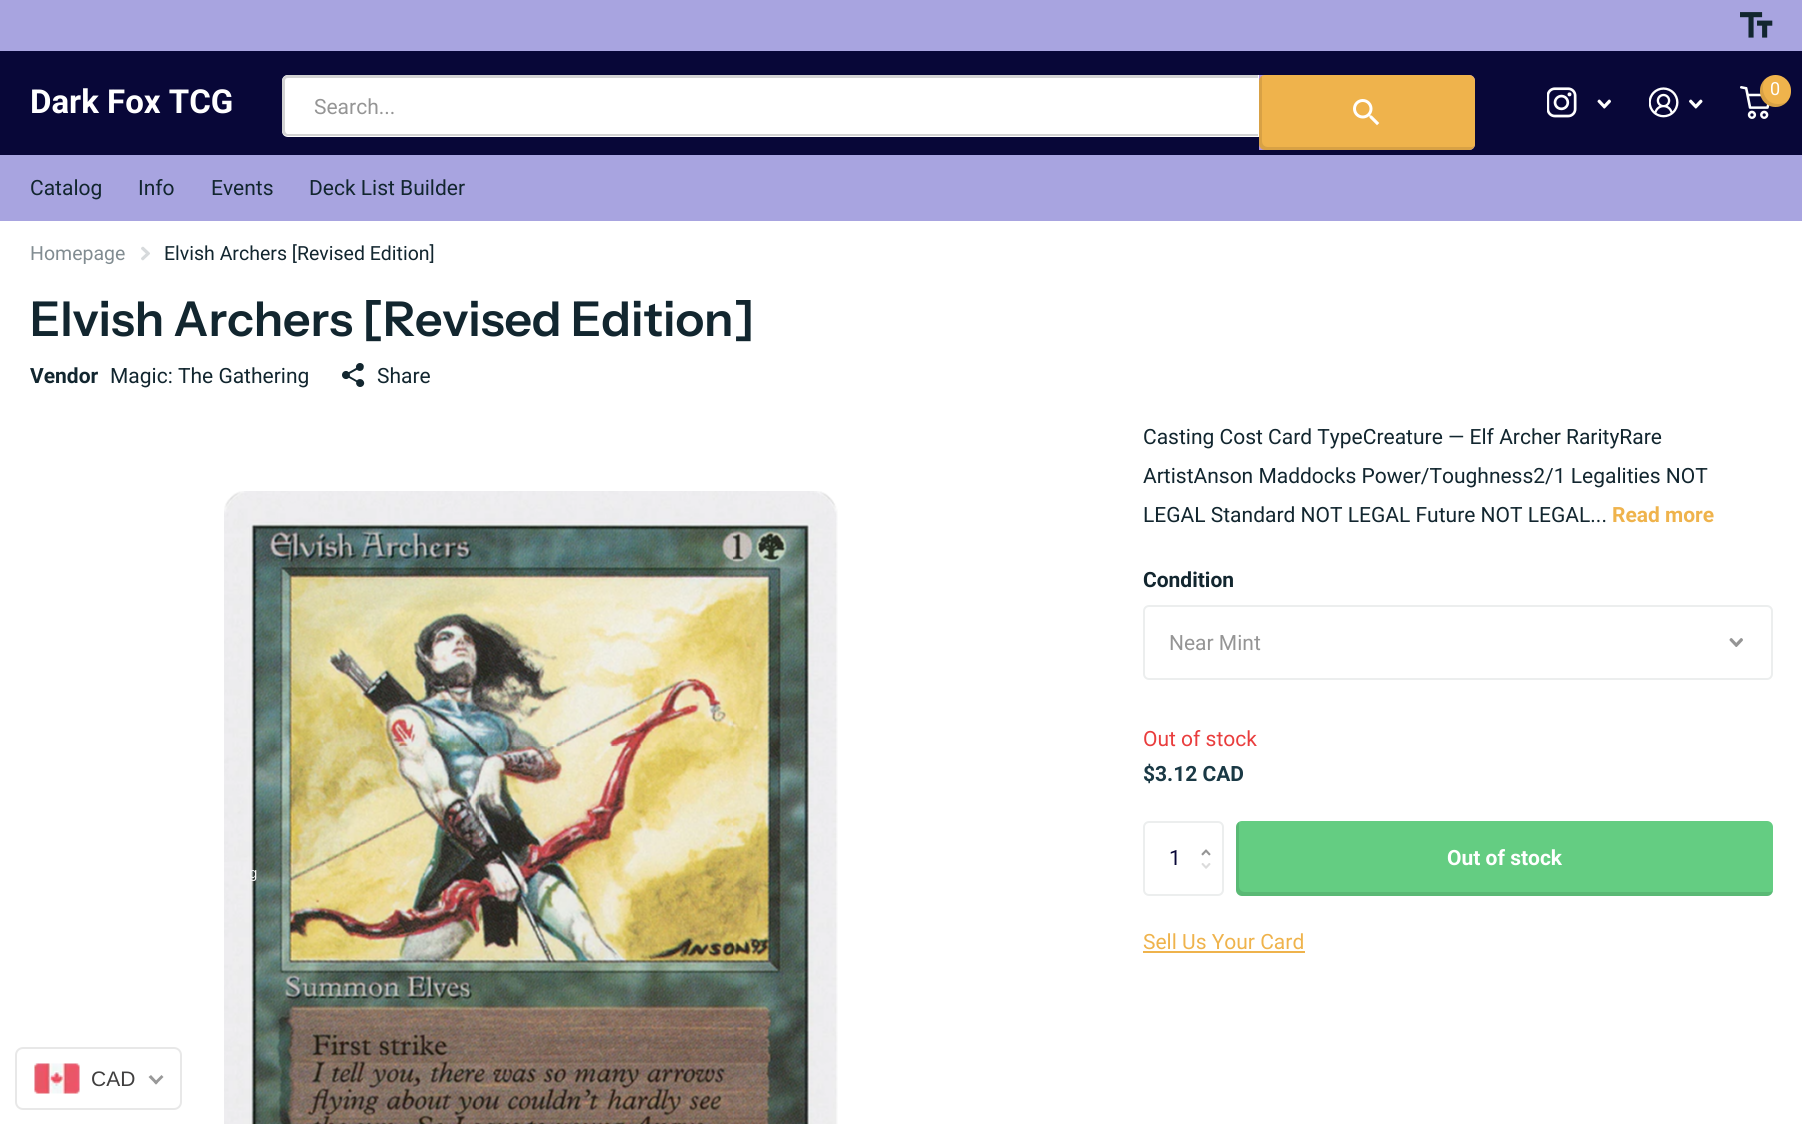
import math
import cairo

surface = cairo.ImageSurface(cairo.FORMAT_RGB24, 1802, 1124)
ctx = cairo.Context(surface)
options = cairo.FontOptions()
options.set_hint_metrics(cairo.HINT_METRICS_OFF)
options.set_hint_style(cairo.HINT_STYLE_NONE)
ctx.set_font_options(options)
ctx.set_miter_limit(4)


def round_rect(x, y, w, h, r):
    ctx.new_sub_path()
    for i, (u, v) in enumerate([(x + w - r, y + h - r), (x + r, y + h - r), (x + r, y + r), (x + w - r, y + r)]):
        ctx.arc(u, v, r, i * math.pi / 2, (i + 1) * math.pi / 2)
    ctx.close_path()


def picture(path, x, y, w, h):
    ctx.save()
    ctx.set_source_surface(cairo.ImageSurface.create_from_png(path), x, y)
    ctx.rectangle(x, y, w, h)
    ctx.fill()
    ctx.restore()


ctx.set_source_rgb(1, 1, 1)
ctx.paint()
ctx.set_source_rgb(0.659, 0.643, 0.878)
ctx.rectangle(0, 0, 1802, 51)
ctx.fill()
picture("img1.png", 1740, 12, 33, 26)
ctx.set_source_rgb(0.035, 0.031, 0.22)
ctx.rectangle(0, 51, 1802, 104)
ctx.fill()
ctx.select_font_face("Roboto", cairo.FONT_SLANT_NORMAL, cairo.FONT_WEIGHT_BOLD)
ctx.set_font_size(33)
ctx.set_source_rgb(1, 1, 1)
ctx.move_to(30, 113)
ctx.show_text("Dark Fox TCG")
ctx.new_path()
ctx.move_to(288, 75)
ctx.line_to(1259, 75)
ctx.line_to(1259, 137)
ctx.line_to(288, 137)
ctx.curve_to(284.5, 137, 282, 134.5, 282, 131)
ctx.line_to(282, 81)
ctx.curve_to(282, 77.5, 284.5, 75, 288, 75)
ctx.close_path()
ctx.fill()
ctx.set_source_rgb(0.827, 0.827, 0.827)
ctx.set_fill_rule(cairo.FILL_RULE_EVEN_ODD)
ctx.new_path()
ctx.move_to(288, 75)
ctx.line_to(1258, 75)
ctx.line_to(1258, 136)
ctx.line_to(288, 136)
ctx.curve_to(285, 136, 282, 134, 282, 130)
ctx.line_to(282, 81)
ctx.curve_to(282, 78, 285, 75, 288, 75)
ctx.close_path()
ctx.move_to(288, 78)
ctx.line_to(1258, 78)
ctx.line_to(1258, 134)
ctx.line_to(288, 134)
ctx.curve_to(286, 134, 285, 132, 285, 130)
ctx.line_to(285, 81)
ctx.curve_to(285, 79, 286, 78, 288, 78)
ctx.close_path()
ctx.fill()
ctx.select_font_face("Roboto")
ctx.set_font_size(21)
ctx.set_source_rgb(0.584, 0.584, 0.584)
ctx.move_to(314, 114)
ctx.show_text("Search...")
ctx.set_source_rgb(0.682, 0.573, 0.886)
ctx.new_path()
ctx.move_to(1259, 75)
ctx.line_to(1469, 75)
ctx.curve_to(1472.5, 75, 1475, 77.5, 1475, 81)
ctx.line_to(1475, 144)
ctx.curve_to(1475, 147.5, 1472.5, 150, 1469, 150)
ctx.line_to(1259, 150)
ctx.close_path()
ctx.fill()
ctx.set_source_rgb(0.937, 0.702, 0.298)
round_rect(1259, 75, 216, 75, 6)
ctx.fill()
ctx.set_source_rgba(0, 0, 0, 0.1)
ctx.set_fill_rule(cairo.FILL_RULE_WINDING)
ctx.new_path()
ctx.move_to(1262, 76)
ctx.curve_to(1260, 77, 1259, 79, 1259, 81)
ctx.line_to(1259, 144)
ctx.curve_to(1259, 147, 1262, 150, 1265, 150)
ctx.line_to(1469, 150)
ctx.curve_to(1471, 150, 1474, 148, 1475, 146)
ctx.line_to(1472, 147)
ctx.line_to(1268, 147)
ctx.curve_to(1264, 147, 1262, 144, 1262, 141)
ctx.line_to(1262, 78)
ctx.close_path()
ctx.fill()
picture("img2.png", 1353, 99, 27, 27)
picture("img3.png", 1547, 87, 30, 31)
picture("img4.png", 1597, 99, 14, 10)
picture("img5.png", 1649, 87, 30, 31)
picture("img6.png", 1689, 99, 14, 10)
picture("img7.png", 1740, 86, 30, 33)
ctx.set_source_rgb(0.937, 0.702, 0.298)
round_rect(1760, 75, 31, 32, 15.5)
ctx.fill()
ctx.set_source_rgba(0, 0, 0, 0.1)
ctx.new_path()
ctx.move_to(1788, 101)
ctx.curve_to(1785.5, 103, 1782, 104, 1778, 104)
ctx.curve_to(1764, 104, 1759.5, 88, 1765.5, 78.5)
ctx.curve_to(1758.5, 84.5, 1758, 96, 1764.5, 102.5)
ctx.curve_to(1771, 109, 1782.5, 108, 1788, 101)
ctx.close_path()
ctx.fill()
ctx.set_font_size(18)
ctx.set_source_rgb(1, 1, 1)
ctx.move_to(1770, 95)
ctx.show_text("0")
ctx.set_source_rgb(0.659, 0.643, 0.878)
ctx.rectangle(0, 155, 1802, 66)
ctx.fill()
ctx.set_font_size(21)
ctx.set_source_rgb(0.071, 0.149, 0.184)
ctx.move_to(30, 195)
ctx.show_text("Catalog")
ctx.move_to(138, 195)
ctx.show_text("Info")
ctx.move_to(211, 195)
ctx.show_text("Events")
ctx.move_to(309, 195)
ctx.show_text("Deck List Builder")
ctx.set_font_size(19.5)
ctx.set_source_rgb(0.506, 0.549, 0.569)
ctx.move_to(30, 260)
ctx.show_text("Homepage")
picture("img8.png", 141, 246, 9, 15)
ctx.set_source_rgb(0.071, 0.149, 0.184)
ctx.move_to(164, 260)
ctx.show_text("Elvish Archers [Revised Edition]")
ctx.select_font_face("Instrument Sans SemiBold")
ctx.set_font_size(48)
ctx.move_to(30, 336)
ctx.show_text("Elvish Archers [Revised Edition]")
ctx.select_font_face("Roboto", cairo.FONT_SLANT_NORMAL, cairo.FONT_WEIGHT_BOLD)
ctx.set_font_size(21)
ctx.move_to(30, 383)
ctx.show_text("Vendor")
ctx.select_font_face("Roboto")
ctx.move_to(110, 383)
ctx.show_text("Magic: The Gathering")
picture("img9.png", 342, 363, 23, 24)
ctx.move_to(377, 383)
ctx.show_text("Share")
picture("img10.png", 224, 491, 614, 633)
ctx.move_to(1143, 444)
ctx.show_text("Casting Cost Card TypeCreature — Elf Archer RarityRare")
ctx.move_to(1143, 483)
ctx.show_text("ArtistAnson Maddocks Power/Toughness2/1 Legalities NOT")
ctx.move_to(1143, 522)
ctx.show_text("LEGAL Standard NOT LEGAL Future NOT LEGAL...")
ctx.select_font_face("Roboto", cairo.FONT_SLANT_NORMAL, cairo.FONT_WEIGHT_BOLD)
ctx.set_source_rgb(0.937, 0.702, 0.298)
ctx.move_to(1612, 522)
ctx.show_text("Read more")
ctx.set_source_rgb(0.071, 0.149, 0.184)
ctx.move_to(1143, 587)
ctx.show_text("Condition")
round_rect(1144, 606, 628, 73, 5)
ctx.set_source_rgb(0.925, 0.933, 0.933)
ctx.stroke()
ctx.select_font_face("Roboto")
ctx.set_source_rgb(0.584, 0.584, 0.584)
ctx.move_to(1169, 650)
ctx.show_text("Near Mint")
picture("img11.png", 1729, 638, 14, 9)
ctx.set_source_rgb(0.914, 0.239, 0.239)
ctx.move_to(1143, 746)
ctx.show_text("Out of stock")
ctx.select_font_face("Roboto", cairo.FONT_SLANT_NORMAL, cairo.FONT_WEIGHT_BOLD)
ctx.set_source_rgb(0.102, 0.224, 0.271)
ctx.move_to(1143, 781)
ctx.show_text("$3.12 CAD")
round_rect(1144, 822, 79, 73, 5)
ctx.set_source_rgb(0.925, 0.933, 0.933)
ctx.stroke()
ctx.select_font_face("Roboto")
ctx.set_source_rgb(0.035, 0.031, 0.22)
ctx.move_to(1169, 865)
ctx.show_text("1")
picture("img12.png", 1201, 849, 10, 7)
picture("img13.png", 1201, 863, 10, 6)
ctx.set_source_rgb(0.392, 0.804, 0.51)
round_rect(1236, 821, 537, 75, 6)
ctx.fill()
ctx.set_source_rgba(0, 0, 0, 0.1)
ctx.new_path()
ctx.move_to(1239, 822)
ctx.curve_to(1237, 823, 1236, 825, 1236, 827)
ctx.line_to(1236, 890)
ctx.curve_to(1236, 893, 1239, 896, 1242, 896)
ctx.line_to(1767, 896)
ctx.curve_to(1770, 896, 1772, 894, 1773, 891)
ctx.line_to(1770, 892)
ctx.line_to(1245, 892)
ctx.curve_to(1242, 892, 1239, 890, 1239, 886)
ctx.line_to(1239, 824)
ctx.close_path()
ctx.fill()
ctx.select_font_face("Roboto", cairo.FONT_SLANT_NORMAL, cairo.FONT_WEIGHT_BOLD)
ctx.set_source_rgb(1, 1, 1)
ctx.move_to(1447, 865)
ctx.show_text("Out of stock")
ctx.select_font_face("Roboto")
ctx.set_source_rgb(0.937, 0.702, 0.298)
ctx.move_to(1143, 949)
ctx.show_text("Sell Us Your Card")
ctx.rectangle(1143, 951, 162, 2)
ctx.fill()
round_rect(16, 1048, 165, 61, 7)
ctx.set_source_rgb(0.91, 0.91, 0.91)
ctx.stroke()
ctx.select_font_face("Liberation Sans")
ctx.set_font_size(15)
ctx.set_source_rgb(0.957, 0.957, 0.957)
ctx.move_to(249, 878)
ctx.show_text("g")
picture("img14.png", 34, 1063, 46, 31)
ctx.set_font_size(21)
ctx.set_source_rgb(0.251, 0.247, 0.247)
ctx.move_to(91, 1086)
ctx.show_text("CAD")
ctx.set_source_rgb(0.6, 0.6, 0.6)
ctx.new_path()
ctx.move_to(161.5, 1075)
ctx.line_to(163.5, 1077)
ctx.line_to(156, 1084.5)
ctx.line_to(154, 1082.5)
ctx.close_path()
ctx.fill()
ctx.new_path()
ctx.move_to(151, 1075)
ctx.line_to(158, 1082.5)
ctx.line_to(156, 1084.5)
ctx.line_to(148.5, 1077)
ctx.close_path()
ctx.fill()
surface.write_to_png("page.png")
